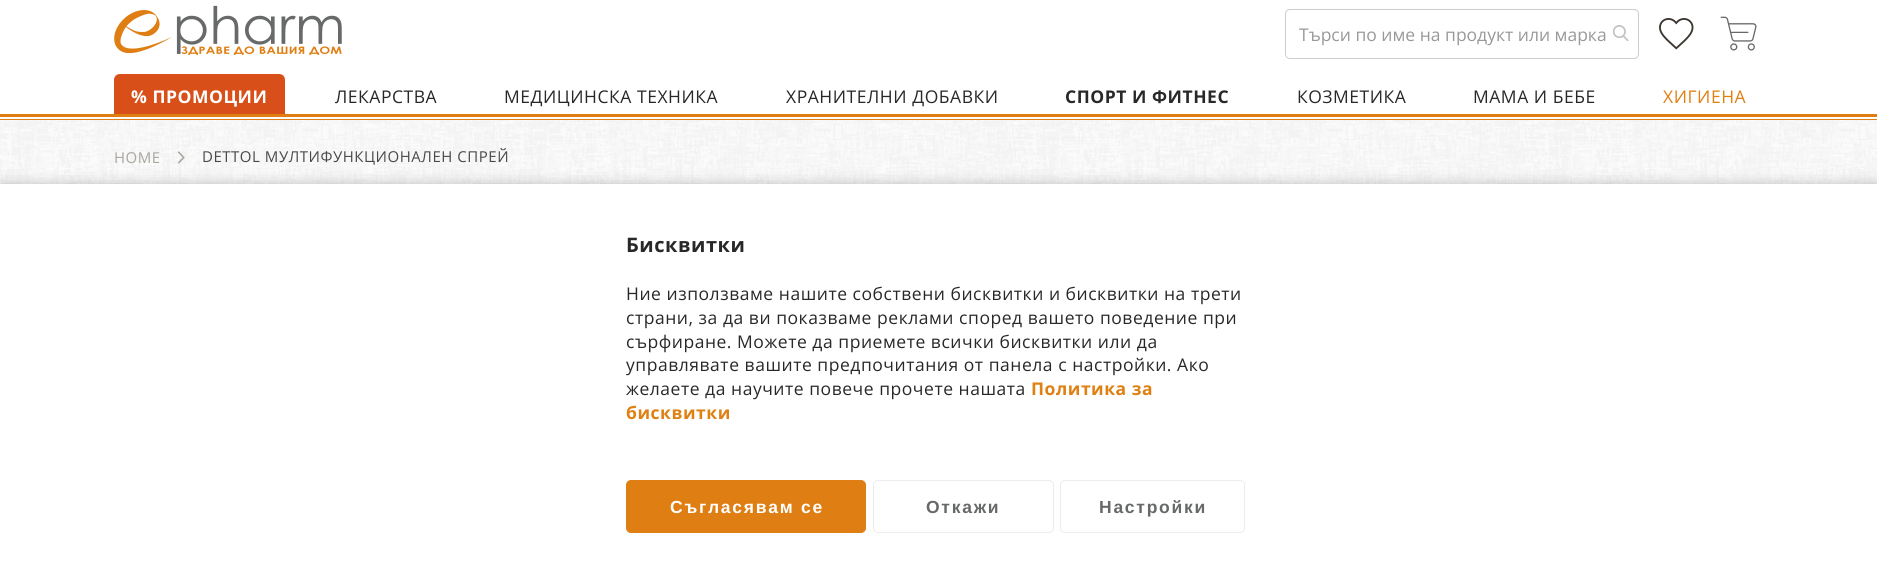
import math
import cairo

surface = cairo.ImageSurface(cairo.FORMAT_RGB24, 1877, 563)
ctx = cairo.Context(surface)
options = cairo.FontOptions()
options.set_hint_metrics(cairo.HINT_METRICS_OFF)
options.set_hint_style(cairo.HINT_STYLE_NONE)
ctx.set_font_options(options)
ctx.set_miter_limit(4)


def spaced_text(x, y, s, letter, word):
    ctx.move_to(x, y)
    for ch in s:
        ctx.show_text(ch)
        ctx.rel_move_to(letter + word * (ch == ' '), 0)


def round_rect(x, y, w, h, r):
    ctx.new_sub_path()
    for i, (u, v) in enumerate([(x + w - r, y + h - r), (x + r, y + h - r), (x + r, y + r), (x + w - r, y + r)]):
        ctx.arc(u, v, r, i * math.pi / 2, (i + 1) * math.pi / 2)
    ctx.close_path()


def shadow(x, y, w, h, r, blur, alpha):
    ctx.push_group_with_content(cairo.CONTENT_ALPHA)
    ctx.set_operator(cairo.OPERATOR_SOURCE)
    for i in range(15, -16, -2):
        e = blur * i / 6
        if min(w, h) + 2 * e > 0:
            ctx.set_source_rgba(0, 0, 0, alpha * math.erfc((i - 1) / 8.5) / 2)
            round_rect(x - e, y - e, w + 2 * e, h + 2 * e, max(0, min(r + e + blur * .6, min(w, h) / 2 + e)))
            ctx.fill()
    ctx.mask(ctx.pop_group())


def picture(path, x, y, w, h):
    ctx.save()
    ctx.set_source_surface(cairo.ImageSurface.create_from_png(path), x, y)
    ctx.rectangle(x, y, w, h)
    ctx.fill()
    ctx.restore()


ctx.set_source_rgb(1, 1, 1)
ctx.paint()
picture("img1.png", 0, 120, 1877, 64)
ctx.set_source_rgb(0.875, 0.494, 0.071)
ctx.rectangle(0, 119, 1877, 1)
ctx.fill()
picture("img2.png", 114, 5, 228, 50)
round_rect(1285.5, 9.5, 353, 49, 4.5)
ctx.set_source_rgb(0.8, 0.8, 0.8)
ctx.set_line_width(1)
ctx.stroke()
ctx.select_font_face("Open Sans")
ctx.set_font_size(17.5)
ctx.set_source_rgb(0.6, 0.6, 0.6)
ctx.move_to(1299, 41)
ctx.show_text("Търси по име на продукт или марка")
picture("img3.png", 1613, 25, 16, 16)
picture("img4.png", 1659, 18, 35, 32)
picture("img5.png", 1720, 16, 37, 35)
ctx.set_source_rgb(0.875, 0.494, 0.071)
ctx.rectangle(0, 114, 1877, 3)
ctx.fill()
ctx.set_source_rgb(0.847, 0.31, 0.098)
ctx.new_path()
ctx.move_to(120, 74)
ctx.line_to(279, 74)
ctx.curve_to(282.5, 74, 285, 76.5, 285, 80)
ctx.line_to(285, 114)
ctx.line_to(114, 114)
ctx.line_to(114, 80)
ctx.curve_to(114, 76.5, 116.5, 74, 120, 74)
ctx.close_path()
ctx.fill()
ctx.select_font_face("Open Sans", cairo.FONT_SLANT_NORMAL, cairo.FONT_WEIGHT_BOLD)
ctx.set_source_rgb(1, 1, 1)
spaced_text(131, 103, "% ПРОМОЦИИ", 0.53, 0)
ctx.select_font_face("Open Sans")
ctx.set_source_rgb(0.157, 0.157, 0.157)
spaced_text(335, 103, "ЛЕКАРСТВА", 0.53, 0)
spaced_text(504, 103, "МЕДИЦИНСКА ТЕХНИКА", 0.53, 0)
spaced_text(786, 103, "ХРАНИТЕЛНИ ДОБАВКИ", 0.53, 0)
ctx.select_font_face("Open Sans", cairo.FONT_SLANT_NORMAL, cairo.FONT_WEIGHT_BOLD)
spaced_text(1065, 103, "СПОРТ И ФИТНЕС", 0.53, 0)
ctx.select_font_face("Open Sans")
spaced_text(1297, 103, "КОЗМЕТИКА", 0.53, 0)
spaced_text(1473, 103, "МАМА И БЕБЕ", 0.53, 0)
ctx.set_source_rgb(0.875, 0.502, 0.071)
spaced_text(1663, 103, "ХИГИЕНА", 0.53, 0)
ctx.set_font_size(15)
ctx.set_source_rgb(0.659, 0.651, 0.624)
spaced_text(114, 163, "HOME", 0.53, 0)
picture("img6.png", 178, 151, 7, 13)
ctx.set_source_rgb(0.29, 0.286, 0.282)
spaced_text(202, 162, "DETTOL МУЛТИФУНКЦИОНАЛЕН СПРЕЙ", 0.53, 0)
ctx.set_source_rgb(0, 0, 0)
shadow(0, 186, 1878, 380, 0, 7.5, 0.31)
ctx.set_source_rgb(1, 1, 1)
ctx.rectangle(0, 184, 1877, 379)
ctx.fill()
ctx.select_font_face("Open Sans", cairo.FONT_SLANT_NORMAL, cairo.FONT_WEIGHT_BOLD)
ctx.set_font_size(20)
ctx.set_source_rgb(0.157, 0.157, 0.157)
spaced_text(626, 252, "Бисквитки", 0.53, 0)
ctx.select_font_face("Open Sans")
ctx.set_font_size(17.5)
spaced_text(626, 300, "Ние използваме нашите собствени бисквитки и бисквитки на трети", 0.53, 0)
spaced_text(626, 324, "страни, за да ви показваме реклами според вашето поведение при", 0.53, 0)
spaced_text(626, 348, "сърфиране. Можете да приемете всички бисквитки или да", 0.53, 0)
spaced_text(626, 371, "управлявате вашите предпочитания от панела с настройки. Ако", 0.53, 0)
spaced_text(626, 395, "желаете да научите повече прочете нашата", 0.53, 0)
ctx.select_font_face("Open Sans", cairo.FONT_SLANT_NORMAL, cairo.FONT_WEIGHT_BOLD)
ctx.set_source_rgb(0.875, 0.502, 0.071)
spaced_text(1031, 395, "Политика за", 0.53, 0)
spaced_text(626, 419, "бисквитки", 0.53, 0)
ctx.set_source_rgb(0.875, 0.494, 0.071)
round_rect(626.5, 480.5, 239, 52, 4.5)
ctx.fill_preserve()
ctx.stroke()
ctx.select_font_face("Liberation Sans", cairo.FONT_SLANT_NORMAL, cairo.FONT_WEIGHT_BOLD)
ctx.set_source_rgb(1, 1, 1)
spaced_text(670, 513, "Съгласявам се", 1.75, 0)
round_rect(873.5, 480.5, 180, 52, 4.5)
ctx.set_source_rgb(0.922, 0.922, 0.922)
ctx.stroke()
ctx.set_source_rgb(0.404, 0.412, 0.408)
spaced_text(926, 513, "Откажи", 1.75, 0)
round_rect(1060.5, 480.5, 184, 52, 4.5)
ctx.set_source_rgb(0.922, 0.922, 0.922)
ctx.stroke()
ctx.set_source_rgb(0.404, 0.412, 0.408)
spaced_text(1099, 513, "Настройки", 1.75, 0)
surface.write_to_png("page.png")
